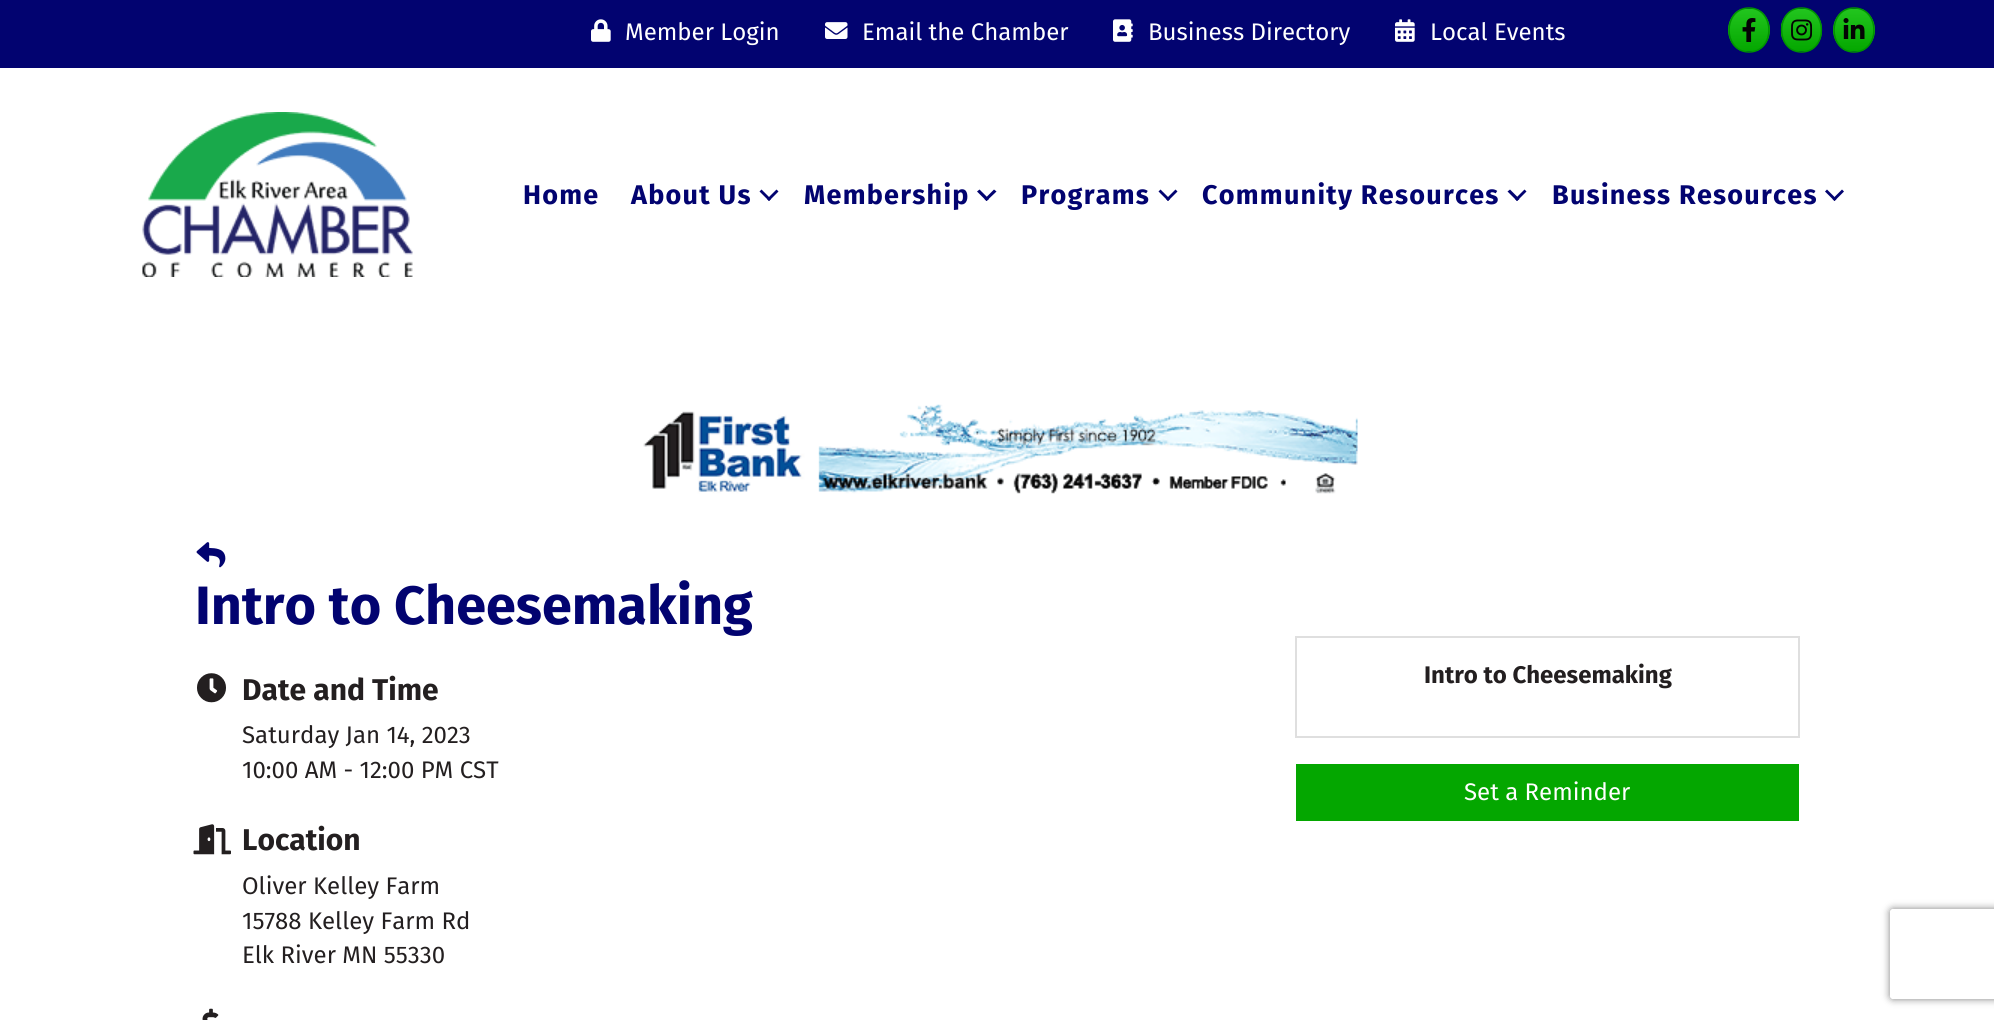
import math
import cairo

surface = cairo.ImageSurface(cairo.FORMAT_RGB24, 1994, 1020)
ctx = cairo.Context(surface)
options = cairo.FontOptions()
options.set_hint_metrics(cairo.HINT_METRICS_OFF)
options.set_hint_style(cairo.HINT_STYLE_NONE)
ctx.set_font_options(options)
ctx.set_miter_limit(4)


def spaced_text(x, y, s, letter, word):
    ctx.move_to(x, y)
    for ch in s:
        ctx.show_text(ch)
        ctx.rel_move_to(letter + word * (ch == ' '), 0)


def round_rect(x, y, w, h, r):
    ctx.new_sub_path()
    for i, (u, v) in enumerate([(x + w - r, y + h - r), (x + r, y + h - r), (x + r, y + r), (x + w - r, y + r)]):
        ctx.arc(u, v, r, i * math.pi / 2, (i + 1) * math.pi / 2)
    ctx.close_path()


def shadow(x, y, w, h, r, blur, alpha):
    ctx.push_group_with_content(cairo.CONTENT_ALPHA)
    ctx.set_operator(cairo.OPERATOR_SOURCE)
    for i in range(15, -16, -2):
        e = blur * i / 6
        if min(w, h) + 2 * e > 0:
            ctx.set_source_rgba(0, 0, 0, alpha * math.erfc((i - 1) / 8.5) / 2)
            round_rect(x - e, y - e, w + 2 * e, h + 2 * e, max(0, min(r + e + blur * .6, min(w, h) / 2 + e)))
            ctx.fill()
    ctx.mask(ctx.pop_group())


def picture(path, x, y, w, h):
    ctx.save()
    ctx.set_source_surface(cairo.ImageSurface.create_from_png(path), x, y)
    ctx.rectangle(x, y, w, h)
    ctx.fill()
    ctx.restore()


ctx.set_source_rgb(1, 1, 1)
ctx.paint()
ctx.set_source_rgb(0.008, 0.012, 0.439)
ctx.rectangle(0, 0, 1994, 68)
ctx.fill()
picture("img1.png", 591, 19, 20, 23)
ctx.select_font_face("Fira Sans")
ctx.set_font_size(24)
ctx.set_source_rgb(1, 1, 1)
ctx.move_to(625, 40)
ctx.show_text("Member Login")
picture("img2.png", 825, 22, 23, 17)
ctx.move_to(862, 40)
ctx.show_text("Email the Chamber")
picture("img3.png", 1113, 19, 20, 23)
ctx.move_to(1148, 40)
ctx.show_text("Business Directory")
picture("img4.png", 1395, 19, 20, 23)
ctx.move_to(1430, 40)
ctx.show_text("Local Events")
gradient = cairo.LinearGradient(1749, 9, 1749, 51)
gradient.add_color_stop_rgba(0, 0.133, 0.773, 0.118, 1)
gradient.add_color_stop_rgba(1, 0.016, 0.655, 0, 1)
ctx.set_source(gradient)
ctx.new_path()
ctx.move_to(1741, 51)
ctx.curve_to(1734, 48, 1728, 40, 1728, 30)
ctx.curve_to(1728, 20, 1734, 12, 1741, 9)
ctx.line_to(1757, 9)
ctx.curve_to(1764, 12, 1770, 20, 1770, 30)
ctx.curve_to(1770, 40, 1764, 48, 1757, 51)
ctx.close_path()
ctx.fill()
ctx.new_path()
ctx.move_to(1749, 8)
ctx.curve_to(1775.5, 8, 1775.5, 52, 1749, 52)
ctx.curve_to(1722.5, 52, 1722.5, 8, 1749, 8)
ctx.close_path()
ctx.set_source_rgb(0, 0.576, 0)
ctx.set_line_width(1.5)
ctx.stroke()
picture("img5.png", 1742, 18, 14, 24)
gradient = cairo.LinearGradient(1802, 9, 1802, 51)
gradient.add_color_stop_rgba(0, 0.133, 0.773, 0.118, 1)
gradient.add_color_stop_rgba(1, 0.016, 0.655, 0, 1)
ctx.set_source(gradient)
ctx.new_path()
ctx.move_to(1781, 25)
ctx.curve_to(1783, 18, 1787, 12, 1794, 9)
ctx.line_to(1809, 9)
ctx.curve_to(1817, 12, 1822, 20, 1822, 30)
ctx.curve_to(1822, 40, 1817, 48, 1809, 51)
ctx.line_to(1794, 51)
ctx.curve_to(1787, 48, 1783, 42, 1781, 35)
ctx.close_path()
ctx.fill()
ctx.new_path()
ctx.move_to(1801.5, 8)
ctx.curve_to(1828, 8, 1828, 52, 1801.5, 52)
ctx.curve_to(1775, 52, 1775, 8, 1801.5, 8)
ctx.close_path()
ctx.set_source_rgb(0, 0.576, 0)
ctx.stroke()
picture("img6.png", 1791, 19, 22, 22)
gradient = cairo.LinearGradient(1854, 9, 1854, 51)
gradient.add_color_stop_rgba(0, 0.133, 0.773, 0.118, 1)
gradient.add_color_stop_rgba(1, 0.016, 0.655, 0, 1)
ctx.set_source(gradient)
ctx.new_path()
ctx.move_to(1846, 51)
ctx.curve_to(1839, 48, 1833, 40, 1833, 30)
ctx.curve_to(1833, 20, 1839, 12, 1846, 9)
ctx.line_to(1862, 9)
ctx.curve_to(1869, 12, 1875, 20, 1875, 30)
ctx.curve_to(1875, 40, 1869, 48, 1862, 51)
ctx.close_path()
ctx.fill()
ctx.new_path()
ctx.move_to(1854, 8)
ctx.curve_to(1880.5, 8, 1880.5, 52, 1854, 52)
ctx.curve_to(1827.5, 52, 1827.5, 8, 1854, 8)
ctx.close_path()
ctx.set_source_rgb(0, 0.576, 0)
ctx.stroke()
picture("img7.png", 1843, 18, 22, 21)
picture("img8.png", 142, 112, 271, 165)
ctx.select_font_face("Fira Sans", cairo.FONT_SLANT_NORMAL, cairo.FONT_WEIGHT_BOLD)
ctx.set_font_size(27)
ctx.set_source_rgb(0.008, 0.012, 0.439)
spaced_text(523, 204, "Home", 1.25, 0)
spaced_text(631, 204, "About Us", 1.25, 0)
ctx.new_path()
ctx.move_to(776.5, 189.5)
ctx.line_to(778.5, 191.5)
ctx.line_to(769, 201)
ctx.line_to(767, 199)
ctx.close_path()
ctx.fill()
ctx.new_path()
ctx.move_to(761.5, 189.5)
ctx.line_to(771, 199)
ctx.line_to(769, 201)
ctx.line_to(759.5, 191.5)
ctx.close_path()
ctx.fill()
spaced_text(804, 204, "Membership", 1.25, 0)
ctx.new_path()
ctx.move_to(994, 189.5)
ctx.line_to(996.5, 191.5)
ctx.line_to(986.5, 201)
ctx.line_to(984.5, 199)
ctx.close_path()
ctx.fill()
ctx.new_path()
ctx.move_to(979.5, 189.5)
ctx.line_to(989, 199)
ctx.line_to(986.5, 201)
ctx.line_to(977, 191.5)
ctx.close_path()
ctx.fill()
spaced_text(1021, 204, "Programs", 1.25, 0)
ctx.new_path()
ctx.move_to(1175.5, 189.5)
ctx.line_to(1177.5, 191.5)
ctx.line_to(1168, 201)
ctx.line_to(1166, 199)
ctx.close_path()
ctx.fill()
ctx.new_path()
ctx.move_to(1160.5, 189.5)
ctx.line_to(1170, 199)
ctx.line_to(1168, 201)
ctx.line_to(1158.5, 191.5)
ctx.close_path()
ctx.fill()
spaced_text(1202, 204, "Community Resources", 1.25, 0)
ctx.new_path()
ctx.move_to(1524.5, 189.5)
ctx.line_to(1526.5, 191.5)
ctx.line_to(1517, 201)
ctx.line_to(1515, 199)
ctx.close_path()
ctx.fill()
ctx.new_path()
ctx.move_to(1510, 189.5)
ctx.line_to(1519.5, 199)
ctx.line_to(1517, 201)
ctx.line_to(1507.5, 191.5)
ctx.close_path()
ctx.fill()
spaced_text(1552, 204, "Business Resources", 1.25, 0)
ctx.new_path()
ctx.move_to(1842, 189.5)
ctx.line_to(1844, 191.5)
ctx.line_to(1834.5, 201)
ctx.line_to(1832.5, 199)
ctx.close_path()
ctx.fill()
ctx.new_path()
ctx.move_to(1827, 189.5)
ctx.line_to(1836.5, 199)
ctx.line_to(1834.5, 201)
ctx.line_to(1825, 191.5)
ctx.close_path()
ctx.fill()
picture("img9.png", 643, 404, 715, 90)
picture("img10.png", 196, 542, 30, 26)
ctx.set_font_size(54)
ctx.move_to(195, 624)
ctx.show_text("Intro to Cheesemaking")
picture("img11.png", 197, 673, 29, 30)
ctx.set_font_size(30)
ctx.set_source_rgb(0.137, 0.122, 0.125)
ctx.move_to(242, 700)
ctx.show_text("Date and Time")
ctx.select_font_face("Fira Sans")
ctx.set_font_size(24)
ctx.move_to(242, 743)
ctx.show_text("Saturday Jan 14, 2023")
ctx.move_to(242, 778)
ctx.show_text("10:00 AM - 12:00 PM CST")
picture("img12.png", 193, 824, 38, 31)
ctx.select_font_face("Fira Sans", cairo.FONT_SLANT_NORMAL, cairo.FONT_WEIGHT_BOLD)
ctx.set_font_size(30)
ctx.move_to(242, 850)
ctx.show_text("Location")
ctx.select_font_face("Fira Sans")
ctx.set_font_size(24)
ctx.move_to(242, 894)
ctx.show_text("Oliver Kelley Farm")
ctx.move_to(242, 929)
ctx.show_text("15788 Kelley Farm Rd")
ctx.move_to(242, 963)
ctx.show_text("Elk River MN 55330")
picture("img13.png", 202, 1008, 17, 12)
ctx.rectangle(1296, 637, 503, 100)
ctx.set_source_rgb(0.875, 0.875, 0.875)
ctx.set_line_width(2)
ctx.stroke()
ctx.select_font_face("Fira Sans", cairo.FONT_SLANT_NORMAL, cairo.FONT_WEIGHT_BOLD)
ctx.set_source_rgb(0.137, 0.122, 0.125)
ctx.move_to(1424, 683)
ctx.show_text("Intro to Cheesemaking")
ctx.set_source_rgb(0.016, 0.655, 0)
ctx.rectangle(1296, 764, 503, 57)
ctx.fill()
ctx.select_font_face("Fira Sans")
ctx.set_source_rgb(1, 1, 1)
ctx.move_to(1464, 800)
ctx.show_text("Set a Reminder")
ctx.save()
ctx.set_fill_rule(cairo.FILL_RULE_EVEN_ODD)
ctx.new_path()
ctx.move_to(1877, 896)
ctx.line_to(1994, 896)
ctx.line_to(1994, 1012)
ctx.line_to(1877, 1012)
ctx.close_path()
ctx.move_to(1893, 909)
ctx.line_to(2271, 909)
ctx.curve_to(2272.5, 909, 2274, 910.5, 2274, 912)
ctx.line_to(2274, 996)
ctx.curve_to(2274, 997.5, 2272.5, 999, 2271, 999)
ctx.line_to(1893, 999)
ctx.curve_to(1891.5, 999, 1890, 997.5, 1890, 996)
ctx.line_to(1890, 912)
ctx.curve_to(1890, 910.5, 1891.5, 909, 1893, 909)
ctx.close_path()
ctx.clip()
ctx.set_source_rgb(0.502, 0.502, 0.502)
shadow(1890, 909, 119, 90, 3, 4, 1)
ctx.restore()
surface.write_to_png("page.png")
